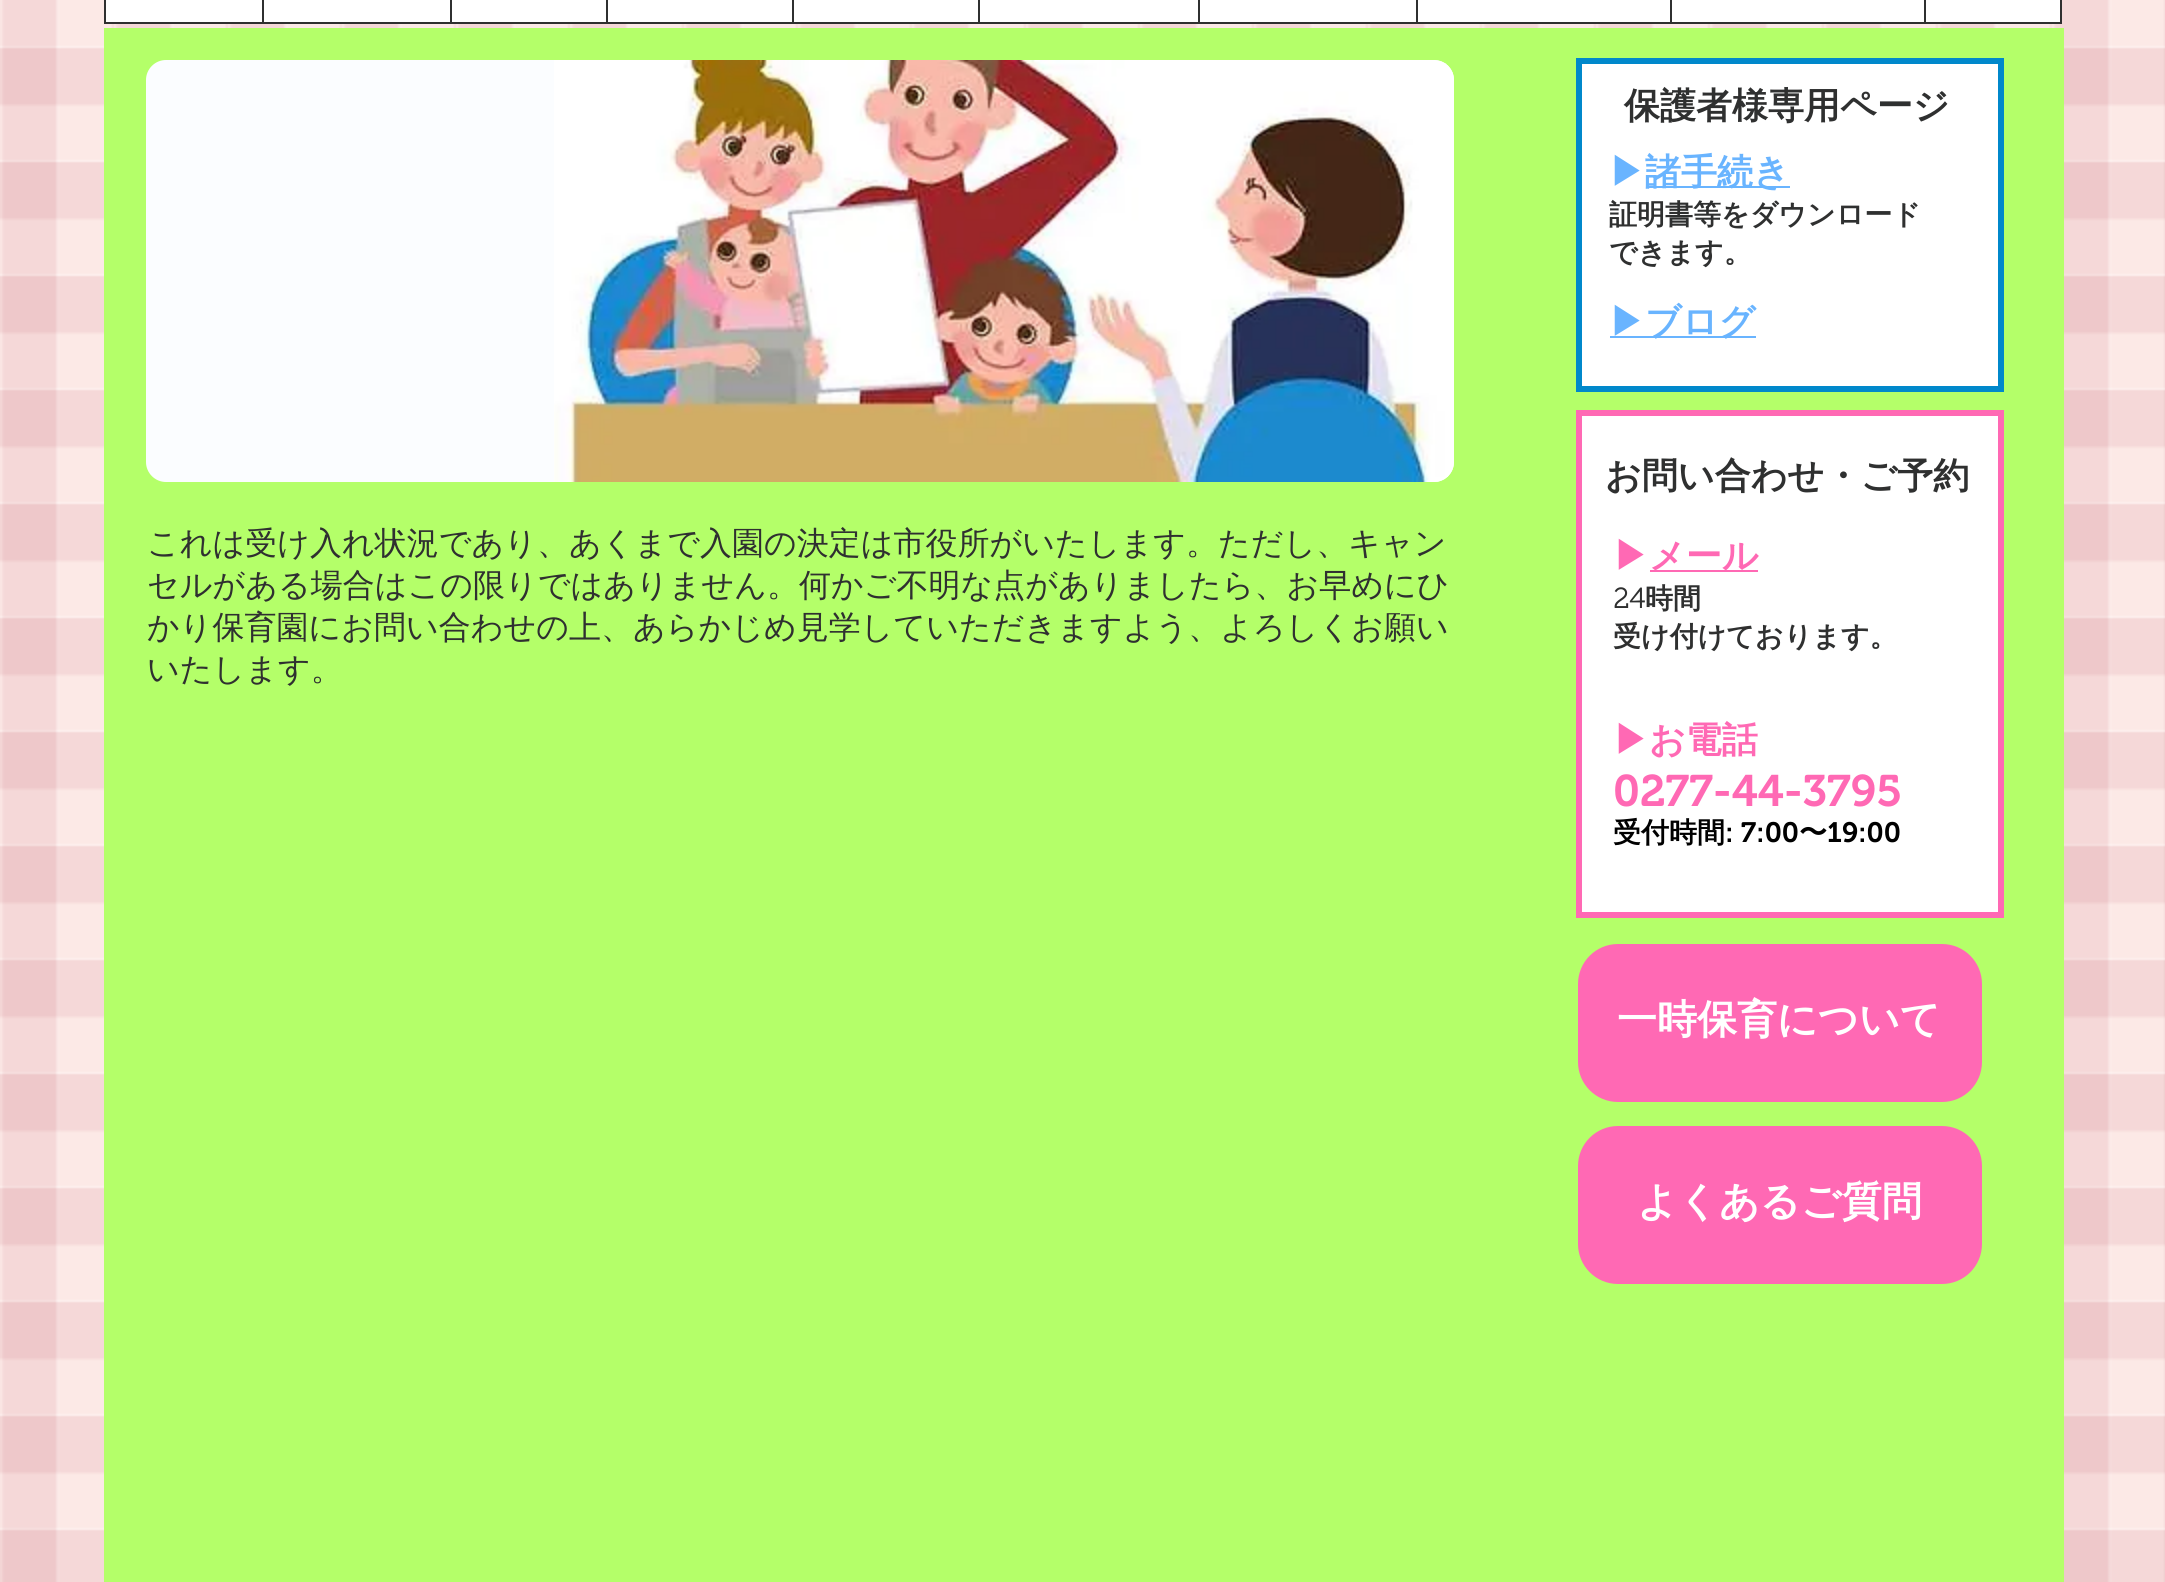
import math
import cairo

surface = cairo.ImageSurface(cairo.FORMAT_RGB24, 2165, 1582)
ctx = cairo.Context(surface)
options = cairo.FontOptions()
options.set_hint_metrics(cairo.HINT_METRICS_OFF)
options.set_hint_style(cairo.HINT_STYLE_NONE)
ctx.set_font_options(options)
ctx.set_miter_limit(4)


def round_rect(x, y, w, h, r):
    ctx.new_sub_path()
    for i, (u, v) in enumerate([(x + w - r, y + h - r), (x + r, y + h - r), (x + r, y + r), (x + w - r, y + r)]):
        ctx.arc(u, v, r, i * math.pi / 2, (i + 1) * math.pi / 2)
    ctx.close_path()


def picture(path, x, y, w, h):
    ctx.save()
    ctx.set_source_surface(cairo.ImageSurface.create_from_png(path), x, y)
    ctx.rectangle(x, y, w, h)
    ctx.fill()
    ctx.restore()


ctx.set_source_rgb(1, 1, 1)
ctx.paint()
picture("img1.png", 0, 0, 2165, 1582)
ctx.set_source_rgb(1, 1, 1)
ctx.rectangle(105, -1, 1956, 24)
ctx.fill_preserve()
ctx.set_source_rgb(0.184, 0.188, 0.188)
ctx.stroke()
ctx.rectangle(262, 0, 2, 22)
ctx.fill()
ctx.rectangle(450, 0, 2, 22)
ctx.fill()
ctx.rectangle(606, 0, 2, 22)
ctx.fill()
ctx.rectangle(792, 0, 2, 22)
ctx.fill()
ctx.rectangle(978, 0, 2, 22)
ctx.fill()
ctx.rectangle(1198, 0, 2, 22)
ctx.fill()
ctx.rectangle(1416, 0, 2, 22)
ctx.fill()
ctx.rectangle(1670, 0, 2, 22)
ctx.fill()
ctx.rectangle(1924, 0, 2, 22)
ctx.fill()
ctx.set_source_rgb(0.706, 1, 0.412)
ctx.rectangle(104, 28, 1960, 1554)
ctx.fill()
ctx.set_source_rgb(0.984, 0.992, 1)
ctx.new_path()
ctx.move_to(548, 60)
ctx.line_to(1434, 60)
ctx.curve_to(1445, 60, 1454, 69, 1454, 80)
ctx.line_to(1454, 462)
ctx.curve_to(1454, 473, 1445, 482, 1434, 482)
ctx.line_to(548, 482)
ctx.close_path()
ctx.fill()
ctx.new_path()
ctx.move_to(166, 60)
ctx.line_to(550, 60)
ctx.line_to(550, 482)
ctx.line_to(166, 482)
ctx.curve_to(155, 482, 146, 473, 146, 462)
ctx.line_to(146, 80)
ctx.curve_to(146, 69, 155, 60, 166, 60)
ctx.close_path()
ctx.fill()
picture("img2.png", 554, 60, 900, 422)
ctx.select_font_face("WenQuanYi Zen Hei Medium")
ctx.set_font_size(32)
ctx.set_source_rgb(0.184, 0.188, 0.188)
ctx.move_to(147, 554)
ctx.show_text("これは受け入れ状況であり、あくまで入園の決定は市役所がいたします。ただし、キャン")
ctx.move_to(147, 596)
ctx.show_text("セルがある場合はこの限りではありません。何かご不明な点がありましたら、お早めにひ")
ctx.move_to(147, 638)
ctx.show_text("かり保育園にお問い合わせの上、あらかじめ見学していただきますよう、よろしくお願い")
ctx.move_to(147, 680)
ctx.show_text("いたします。")
ctx.set_source_rgb(1, 1, 1)
ctx.rectangle(1579, 61, 422, 328)
ctx.fill_preserve()
ctx.set_source_rgb(0, 0.533, 0.796)
ctx.set_line_width(6)
ctx.stroke()
ctx.select_font_face("WenQuanYi Zen Hei", cairo.FONT_SLANT_NORMAL, cairo.FONT_WEIGHT_BOLD)
ctx.set_font_size(36)
ctx.set_source_rgb(0.184, 0.188, 0.188)
ctx.move_to(1624, 118)
ctx.show_text("保護者様専用ページ")
ctx.set_source_rgb(0.412, 0.706, 1)
ctx.move_to(1609, 184)
ctx.show_text("▶")
ctx.rectangle(1646, 186, 144, 2)
ctx.fill()
ctx.move_to(1645, 184)
ctx.show_text("諸手続き")
ctx.set_font_size(28)
ctx.set_source_rgb(0.184, 0.188, 0.188)
ctx.move_to(1609, 224)
ctx.show_text("証明書等をダウンロード")
ctx.move_to(1609, 262)
ctx.show_text("できます。")
ctx.set_source_rgb(0.412, 0.706, 1)
ctx.rectangle(1610, 336, 146, 2)
ctx.fill()
ctx.set_font_size(36)
ctx.move_to(1609, 334)
ctx.show_text("▶ブログ")
ctx.set_source_rgb(1, 1, 1)
ctx.rectangle(1579, 413, 422, 502)
ctx.fill_preserve()
ctx.set_source_rgb(1, 0.412, 0.706)
ctx.stroke()
ctx.set_source_rgb(0.184, 0.188, 0.188)
ctx.move_to(1605, 488)
ctx.show_text("お問い合わせ・ご予約")
ctx.set_source_rgb(1, 0.412, 0.706)
ctx.move_to(1613, 568)
ctx.show_text("▶")
ctx.rectangle(1650, 570, 108, 2)
ctx.fill()
ctx.move_to(1649, 568)
ctx.show_text("メール")
ctx.select_font_face("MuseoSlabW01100", cairo.FONT_SLANT_NORMAL, cairo.FONT_WEIGHT_BOLD)
ctx.set_font_size(28)
ctx.set_source_rgb(0.184, 0.188, 0.188)
ctx.move_to(1613, 608)
ctx.show_text("24")
ctx.select_font_face("WenQuanYi Zen Hei", cairo.FONT_SLANT_NORMAL, cairo.FONT_WEIGHT_BOLD)
ctx.move_to(1645, 608)
ctx.show_text("時間")
ctx.move_to(1613, 646)
ctx.show_text("受け付けております。")
ctx.set_font_size(36)
ctx.set_source_rgb(1, 0.412, 0.706)
ctx.move_to(1613, 752)
ctx.show_text("▶お電話")
ctx.select_font_face("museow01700 SemiBold")
ctx.set_font_size(44)
ctx.move_to(1613, 806)
ctx.show_text("0277-44-3795")
ctx.select_font_face("WenQuanYi Zen Hei", cairo.FONT_SLANT_NORMAL, cairo.FONT_WEIGHT_BOLD)
ctx.set_font_size(28)
ctx.set_source_rgb(0, 0, 0)
ctx.move_to(1613, 842)
ctx.show_text("受付時間")
ctx.select_font_face("museow01700 SemiBold")
ctx.move_to(1725, 842)
ctx.show_text(": 7:00")
ctx.select_font_face("WenQuanYi Zen Hei", cairo.FONT_SLANT_NORMAL, cairo.FONT_WEIGHT_BOLD)
ctx.move_to(1799, 842)
ctx.show_text("〜")
ctx.select_font_face("museow01700 SemiBold")
ctx.move_to(1827, 842)
ctx.show_text("19:00")
ctx.set_source_rgb(1, 0.412, 0.706)
round_rect(1578, 944, 404, 158, 40)
ctx.fill()
ctx.select_font_face("WenQuanYi Zen Hei", cairo.FONT_SLANT_NORMAL, cairo.FONT_WEIGHT_BOLD)
ctx.set_font_size(40)
ctx.set_source_rgb(1, 1, 1)
ctx.move_to(1617, 1033)
ctx.show_text("一時保育について")
ctx.set_source_rgb(1, 0.412, 0.706)
round_rect(1578, 1126, 404, 158, 40)
ctx.fill()
ctx.set_source_rgb(1, 1, 1)
ctx.move_to(1637, 1215)
ctx.show_text("よくあるご質問")
surface.write_to_png("page.png")
